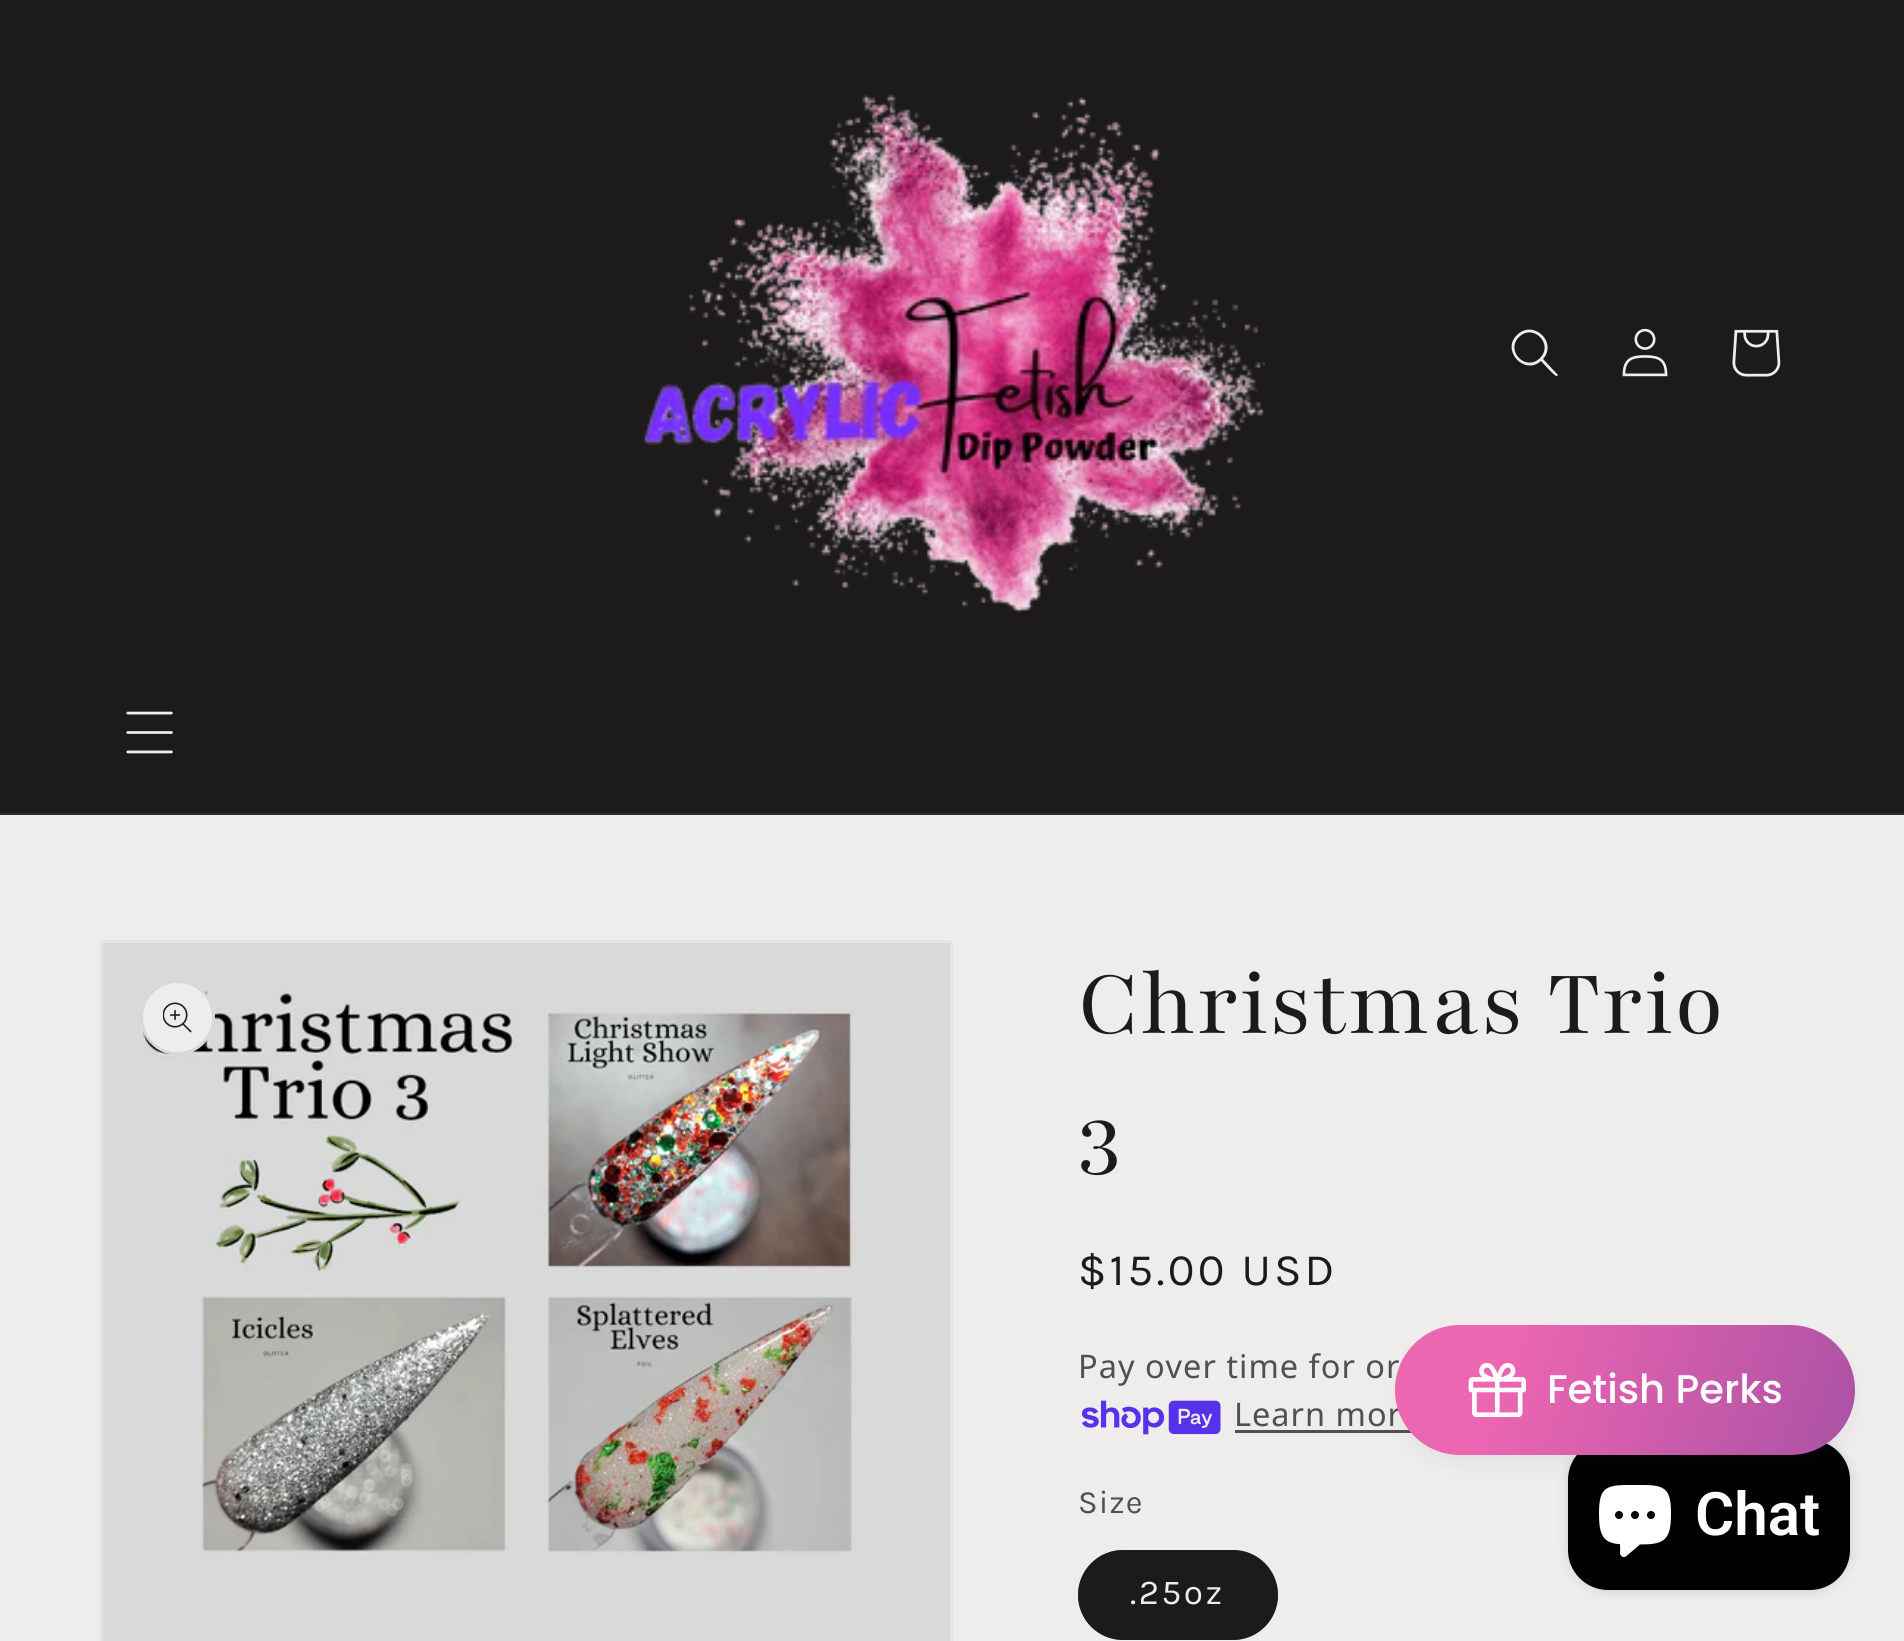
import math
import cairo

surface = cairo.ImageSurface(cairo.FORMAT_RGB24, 1904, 1641)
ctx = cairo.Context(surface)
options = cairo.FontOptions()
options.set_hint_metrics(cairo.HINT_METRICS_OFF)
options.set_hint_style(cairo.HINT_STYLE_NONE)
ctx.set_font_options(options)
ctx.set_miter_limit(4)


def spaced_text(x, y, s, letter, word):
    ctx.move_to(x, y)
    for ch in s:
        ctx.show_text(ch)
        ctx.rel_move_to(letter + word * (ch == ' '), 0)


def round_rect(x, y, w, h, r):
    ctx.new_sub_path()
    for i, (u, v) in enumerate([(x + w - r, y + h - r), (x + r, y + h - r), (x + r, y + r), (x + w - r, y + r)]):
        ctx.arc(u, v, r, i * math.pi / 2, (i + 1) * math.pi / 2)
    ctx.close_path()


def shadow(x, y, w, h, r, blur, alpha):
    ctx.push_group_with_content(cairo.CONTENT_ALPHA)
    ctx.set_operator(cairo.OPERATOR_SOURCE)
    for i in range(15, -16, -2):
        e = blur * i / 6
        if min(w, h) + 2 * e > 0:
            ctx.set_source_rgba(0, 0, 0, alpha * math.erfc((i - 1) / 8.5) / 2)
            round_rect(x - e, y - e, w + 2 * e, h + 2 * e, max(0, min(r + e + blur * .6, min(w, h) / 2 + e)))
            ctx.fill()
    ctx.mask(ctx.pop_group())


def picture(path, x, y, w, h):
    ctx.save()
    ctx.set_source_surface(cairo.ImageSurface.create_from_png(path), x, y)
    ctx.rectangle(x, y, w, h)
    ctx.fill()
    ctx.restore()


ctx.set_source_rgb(0.937, 0.925, 0.925)
ctx.paint()
ctx.set_source_rgb(0.11, 0.102, 0.102)
ctx.rectangle(0, 0, 1904, 813)
ctx.fill()
ctx.set_source_rgb(0.176, 0.169, 0.169)
ctx.rectangle(0, 813, 1904, 2)
ctx.fill()
picture("img1.png", 644, 94, 621, 519)
ctx.set_source_rgb(0.937, 0.925, 0.925)
ctx.set_fill_rule(cairo.FILL_RULE_EVEN_ODD)
ctx.new_path()
ctx.move_to(1540, 358)
ctx.curve_to(1526, 372, 1505, 351, 1519, 337)
ctx.curve_to(1533, 323, 1554, 344, 1540, 358)
ctx.close_path()
ctx.move_to(1541, 361)
ctx.curve_to(1524, 376, 1501, 350, 1517, 335)
ctx.curve_to(1533, 319, 1558, 342, 1543, 359)
ctx.line_to(1558, 375)
ctx.line_to(1557, 376)
ctx.curve_to(1555, 377, 1543, 363, 1541, 361)
ctx.close_path()
ctx.fill()
picture("img2.png", 1622, 328, 46, 49)
picture("img3.png", 1732, 329, 49, 48)
picture("img4.png", 126, 711, 47, 43)
ctx.rectangle(101.5, 941.5, 850, 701)
ctx.set_source_rgb(0.906, 0.894, 0.894)
ctx.set_line_width(3)
ctx.stroke()
picture("img5.png", 103, 943, 847, 698)
ctx.set_source_rgb(0.937, 0.925, 0.925)
ctx.arc(177.5, 1017.5, 37.5, 0, 2 * math.pi)
ctx.fill()
ctx.arc(177.5, 1017.5, 36, 0, 2 * math.pi)
ctx.set_source_rgba(0.11, 0.102, 0.102, 0.1)
ctx.stroke()
picture("img6.png", 163, 1002, 29, 31)
ctx.select_font_face("Playfair")
ctx.set_font_size(100)
ctx.set_source_rgb(0.11, 0.102, 0.102)
spaced_text(1078, 1033, "Christmas Trio", 1.5, 0)
spaced_text(1078, 1163, "3", 1.5, 0)
ctx.select_font_face("Karla")
ctx.set_font_size(45)
spaced_text(1078, 1285, "$15.00 USD", 3.25, 0)
ctx.select_font_face("Noto Sans")
ctx.set_font_size(32.5)
ctx.set_source_rgb(0.318, 0.31, 0.31)
spaced_text(1078, 1378, "Pay over time for or", 1, 0)
picture("img7.png", 1081, 1400, 140, 35)
spaced_text(1234, 1426, "Learn mor", 1, 0)
ctx.rectangle(1235, 1430, 177, 3)
ctx.fill()
ctx.select_font_face("Karla")
spaced_text(1078, 1513, "Size", 1, 0)
ctx.set_source_rgb(0.11, 0.102, 0.102)
round_rect(1078, 1550, 200, 90, 45)
ctx.fill()
round_rect(1079.5, 1551.5, 197, 87, 43.5)
ctx.set_source_rgba(0.11, 0.102, 0.102, 0.55)
ctx.stroke()
ctx.set_font_size(35)
ctx.set_source_rgb(0.937, 0.925, 0.925)
spaced_text(1130, 1604, ".25oz", 2.5, 0)
ctx.set_source_rgb(0, 0, 0)
shadow(1568, 1440, 282, 150, 40, 6, 0.15)
ctx.set_source_rgb(0, 0, 0)
round_rect(1568, 1440, 282, 150, 40)
ctx.fill()
picture("img9.png", 1599, 1485, 72, 72)
ctx.set_source_rgb(0.267, 0.267, 0.267)
shadow(1400, 1340, 450, 120, 60, 10, 0.08)
gradient = cairo.LinearGradient(1400, 1310, 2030, 1534)
gradient.add_color_stop_rgba(0.17, 0.929, 0.4, 0.698, 1)
gradient.add_color_stop_rgba(1, 0.525, 0.275, 0.612, 1)
ctx.set_source(gradient)
round_rect(1395, 1325, 460, 130, 65)
ctx.fill()
picture("img8.png", 1468, 1363, 58, 54)
ctx.select_font_face("Poppins Medium")
ctx.set_font_size(40)
ctx.set_source_rgb(1, 1, 1)
ctx.move_to(1547, 1403)
ctx.show_text("Fetish Perks")
ctx.select_font_face("Roboto SemiBold")
ctx.set_font_size(60)
ctx.move_to(1695, 1535)
ctx.show_text("Chat")
surface.write_to_png("page.png")
